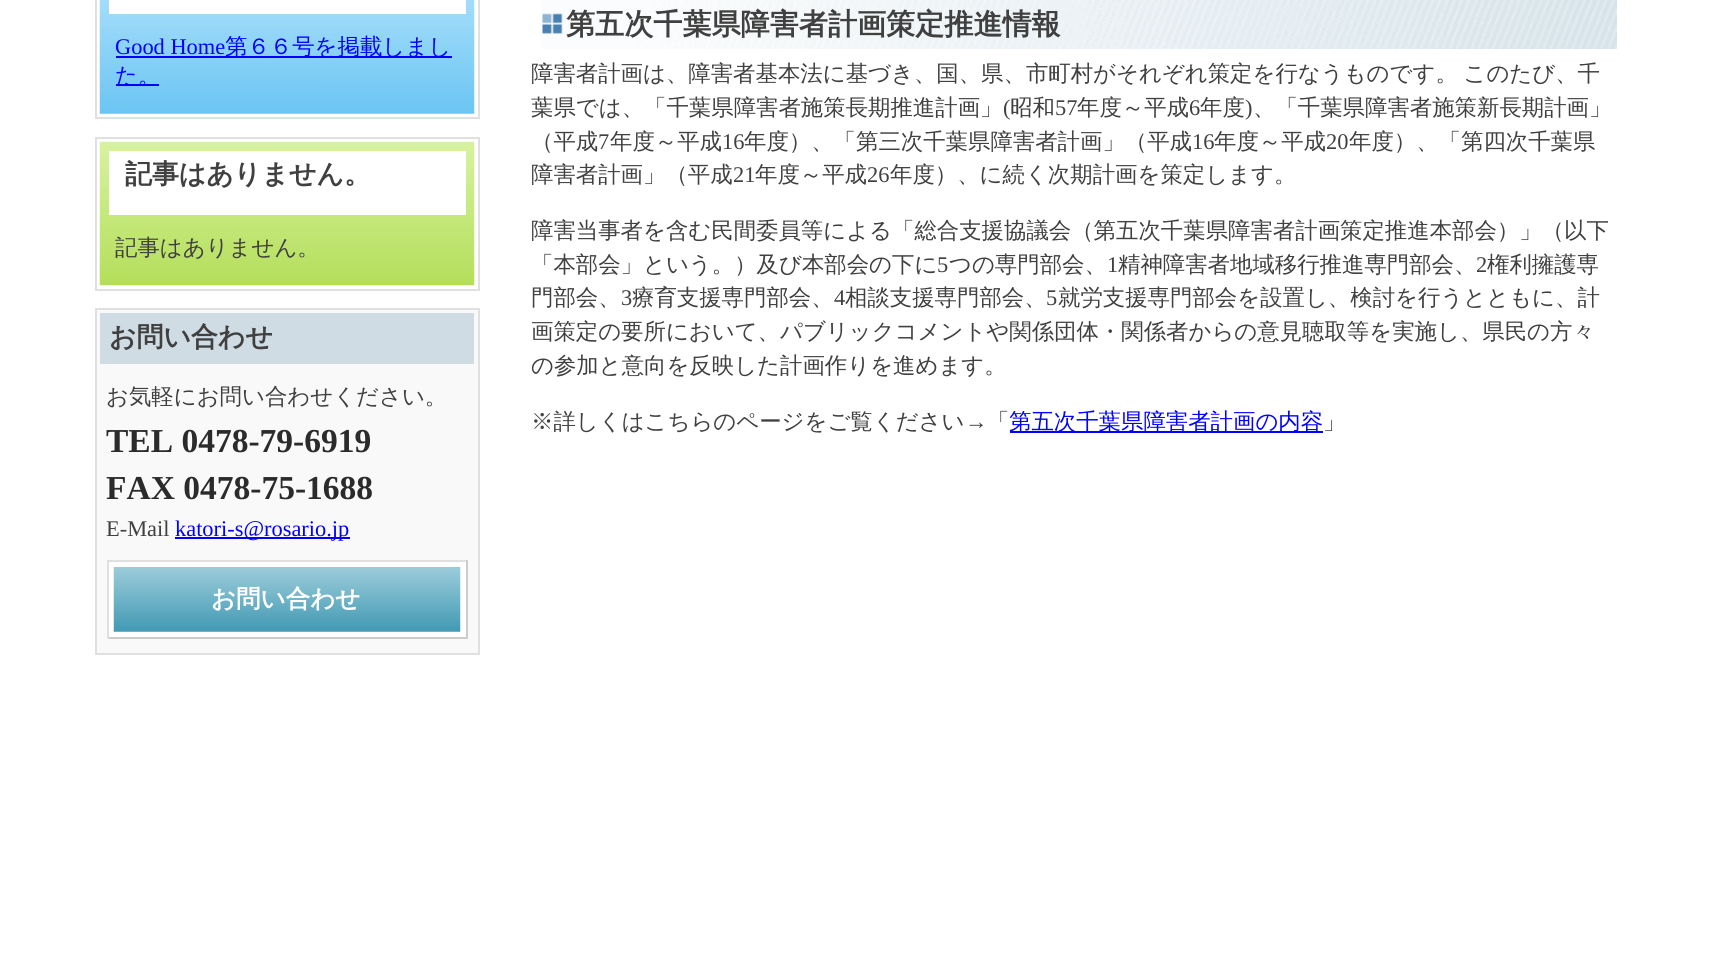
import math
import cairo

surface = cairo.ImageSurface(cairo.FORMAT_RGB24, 1727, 967)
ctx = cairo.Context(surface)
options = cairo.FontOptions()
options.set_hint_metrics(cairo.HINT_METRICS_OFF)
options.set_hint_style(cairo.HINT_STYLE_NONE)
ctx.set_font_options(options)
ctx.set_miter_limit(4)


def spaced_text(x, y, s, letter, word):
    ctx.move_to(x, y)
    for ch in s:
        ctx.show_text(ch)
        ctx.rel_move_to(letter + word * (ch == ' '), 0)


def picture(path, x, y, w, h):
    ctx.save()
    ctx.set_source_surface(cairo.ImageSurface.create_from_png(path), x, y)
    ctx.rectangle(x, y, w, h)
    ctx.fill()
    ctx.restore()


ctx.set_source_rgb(1, 1, 1)
ctx.paint()
ctx.rectangle(96, -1, 383, 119)
ctx.set_source_rgb(0.878, 0.878, 0.878)
ctx.stroke()
picture("img1.png", 99, 0, 376, 114)
ctx.set_source_rgb(1, 1, 1)
ctx.rectangle(109, 0, 357, 14)
ctx.fill()
ctx.select_font_face("Liberation Serif")
ctx.set_font_size(22.4)
ctx.set_source_rgb(0, 0, 1)
ctx.move_to(115, 54)
ctx.show_text("Good Home")
ctx.rectangle(116, 56, 336, 2)
ctx.fill()
ctx.select_font_face("WenQuanYi Zen Hei Medium")
ctx.move_to(225, 54)
ctx.show_text("第６６号を掲載しまし")
ctx.rectangle(116, 84, 43, 2)
ctx.fill()
ctx.move_to(115, 83)
ctx.show_text("た。")
ctx.rectangle(96, 138, 383, 152)
ctx.set_source_rgb(0.878, 0.878, 0.878)
ctx.stroke()
picture("img2.png", 99, 141, 376, 145)
ctx.set_source_rgb(1, 1, 1)
ctx.rectangle(109, 151, 357, 64)
ctx.fill()
ctx.select_font_face("WenQuanYi Zen Hei", cairo.FONT_SLANT_NORMAL, cairo.FONT_WEIGHT_BOLD)
ctx.set_font_size(26.9)
ctx.set_source_rgb(0.251, 0.251, 0.251)
ctx.move_to(125, 183)
ctx.show_text("記事はありません。")
ctx.select_font_face("WenQuanYi Zen Hei Medium")
ctx.set_font_size(22.4)
ctx.move_to(115, 255)
ctx.show_text("記事はありません。")
ctx.set_source_rgb(0.976, 0.976, 0.976)
ctx.rectangle(96, 309, 383, 345)
ctx.fill_preserve()
ctx.set_source_rgb(0.878, 0.878, 0.878)
ctx.stroke()
ctx.set_source_rgb(0.812, 0.863, 0.89)
ctx.rectangle(100, 313, 374, 51)
ctx.fill()
ctx.select_font_face("WenQuanYi Zen Hei", cairo.FONT_SLANT_NORMAL, cairo.FONT_WEIGHT_BOLD)
ctx.set_font_size(26.9)
ctx.set_source_rgb(0.251, 0.251, 0.251)
ctx.move_to(109, 346)
ctx.show_text("お問い合わせ")
ctx.select_font_face("WenQuanYi Zen Hei Medium")
ctx.set_font_size(22.4)
ctx.move_to(106, 404)
ctx.show_text("お気軽にお問い合わせください。")
ctx.select_font_face("Liberation Serif", cairo.FONT_SLANT_NORMAL, cairo.FONT_WEIGHT_BOLD)
ctx.set_font_size(33.5)
ctx.set_source_rgb(0.169, 0.169, 0.169)
ctx.move_to(106, 452)
ctx.show_text("TEL 0478-79-6919")
ctx.move_to(106, 499)
ctx.show_text("FAX 0478-75-1688")
ctx.select_font_face("Liberation Serif")
ctx.set_font_size(22.4)
ctx.set_source_rgb(0.251, 0.251, 0.251)
ctx.move_to(106, 536)
ctx.show_text("E-Mail")
ctx.set_source_rgb(0, 0, 1)
ctx.rectangle(175, 537, 175, 2)
ctx.fill()
ctx.move_to(175, 536)
ctx.show_text("katori-s@rosario.jp")
ctx.set_source_rgb(1, 1, 1)
ctx.rectangle(109, 562, 357, 75)
ctx.fill()
ctx.set_source_rgb(0.878, 0.878, 0.878)
ctx.rectangle(107, 560, 360, 2)
ctx.fill()
ctx.set_source_rgb(0.8, 0.8, 0.8)
ctx.rectangle(466, 560, 2, 79)
ctx.fill()
ctx.rectangle(107, 637, 360, 2)
ctx.fill()
ctx.set_source_rgb(0.878, 0.878, 0.878)
ctx.rectangle(107, 560, 2, 79)
ctx.fill()
picture("img3.png", 113, 567, 348, 65)
ctx.select_font_face("WenQuanYi Zen Hei", cairo.FONT_SLANT_NORMAL, cairo.FONT_WEIGHT_BOLD)
ctx.set_font_size(24.5)
ctx.set_source_rgb(1, 1, 1)
ctx.move_to(211, 607)
ctx.show_text("お問い合わせ")
picture("img4.png", 542, 0, 1075, 49)
ctx.set_font_size(29.1)
ctx.set_source_rgb(0.251, 0.251, 0.251)
ctx.move_to(566, 34)
ctx.show_text("第五次千葉県障害者計画策定推進情報")
ctx.select_font_face("WenQuanYi Zen Hei Medium")
ctx.set_font_size(22.4)
spaced_text(531, 81, "障害者計画は、障害者基本法に基づき、国、県、市町村がそれぞれ策定を行なうものです。 このたび、千", 0, -1)
ctx.move_to(531, 115)
ctx.show_text("葉県では、「千葉県障害者施策長期推進計画」")
ctx.select_font_face("Liberation Serif")
ctx.move_to(1003, 115)
ctx.show_text("(")
ctx.select_font_face("WenQuanYi Zen Hei Medium")
ctx.move_to(1010, 115)
ctx.show_text("昭和")
ctx.select_font_face("Liberation Serif")
ctx.move_to(1055, 115)
ctx.show_text("57")
ctx.select_font_face("WenQuanYi Zen Hei Medium")
ctx.move_to(1077, 115)
ctx.show_text("年度～平成")
ctx.select_font_face("Liberation Serif")
ctx.move_to(1189, 115)
ctx.show_text("6")
ctx.select_font_face("WenQuanYi Zen Hei Medium")
ctx.move_to(1200, 115)
ctx.show_text("年度")
ctx.select_font_face("Liberation Serif")
ctx.move_to(1245, 115)
ctx.show_text(")")
ctx.select_font_face("WenQuanYi Zen Hei Medium")
ctx.move_to(1253, 115)
ctx.show_text("、「千葉県障害者施策新長期計画」")
ctx.move_to(531, 149)
ctx.show_text("（平成")
ctx.select_font_face("Liberation Serif")
ctx.move_to(598, 149)
ctx.show_text("7")
ctx.select_font_face("WenQuanYi Zen Hei Medium")
ctx.move_to(610, 149)
ctx.show_text("年度～平成")
ctx.select_font_face("Liberation Serif")
ctx.move_to(722, 149)
ctx.show_text("16")
ctx.select_font_face("WenQuanYi Zen Hei Medium")
ctx.move_to(744, 149)
ctx.show_text("年度）、「第三次千葉県障害者計画」（平成")
ctx.select_font_face("Liberation Serif")
ctx.move_to(1192, 149)
ctx.show_text("16")
ctx.select_font_face("WenQuanYi Zen Hei Medium")
ctx.move_to(1214, 149)
ctx.show_text("年度～平成")
ctx.select_font_face("Liberation Serif")
ctx.move_to(1326, 149)
ctx.show_text("20")
ctx.select_font_face("WenQuanYi Zen Hei Medium")
ctx.move_to(1349, 149)
ctx.show_text("年度）、「第四次千葉県")
ctx.move_to(531, 182)
ctx.show_text("障害者計画」（平成")
ctx.select_font_face("Liberation Serif")
ctx.move_to(733, 182)
ctx.show_text("21")
ctx.select_font_face("WenQuanYi Zen Hei Medium")
ctx.move_to(755, 182)
ctx.show_text("年度～平成")
ctx.select_font_face("Liberation Serif")
ctx.move_to(867, 182)
ctx.show_text("26")
ctx.select_font_face("WenQuanYi Zen Hei Medium")
ctx.move_to(890, 182)
ctx.show_text("年度）、に続く次期計画を策定します。")
ctx.move_to(531, 238)
ctx.show_text("障害当事者を含む民間委員等による「総合支援協議会（第五次千葉県障害者計画策定推進本部会）」（以下")
ctx.move_to(531, 272)
ctx.show_text("「本部会」という。）及び本部会の下に")
ctx.select_font_face("Liberation Serif")
ctx.move_to(937, 272)
ctx.show_text("5")
ctx.select_font_face("WenQuanYi Zen Hei Medium")
ctx.move_to(949, 272)
ctx.show_text("つの専門部会、")
ctx.select_font_face("Liberation Serif")
ctx.move_to(1107, 272)
ctx.show_text("1")
ctx.select_font_face("WenQuanYi Zen Hei Medium")
ctx.move_to(1118, 272)
ctx.show_text("精神障害者地域移行推進専門部会、")
ctx.select_font_face("Liberation Serif")
ctx.move_to(1476, 272)
ctx.show_text("2")
ctx.select_font_face("WenQuanYi Zen Hei Medium")
ctx.move_to(1487, 272)
ctx.show_text("権利擁護専")
ctx.move_to(531, 305)
ctx.show_text("門部会、")
ctx.select_font_face("Liberation Serif")
ctx.move_to(621, 305)
ctx.show_text("3")
ctx.select_font_face("WenQuanYi Zen Hei Medium")
ctx.move_to(632, 305)
ctx.show_text("療育支援専門部会、")
ctx.select_font_face("Liberation Serif")
ctx.move_to(834, 305)
ctx.show_text("4")
ctx.select_font_face("WenQuanYi Zen Hei Medium")
ctx.move_to(845, 305)
ctx.show_text("相談支援専門部会、")
ctx.select_font_face("Liberation Serif")
ctx.move_to(1046, 305)
ctx.show_text("5")
ctx.select_font_face("WenQuanYi Zen Hei Medium")
ctx.move_to(1058, 305)
ctx.show_text("就労支援専門部会を設置し、検討を行うとともに、計")
ctx.move_to(531, 339)
ctx.show_text("画策定の要所において、パブリックコメントや関係団体・関係者からの意見聴取等を実施し、県民の方々")
ctx.move_to(531, 373)
ctx.show_text("の参加と意向を反映した計画作りを進めます。")
ctx.move_to(531, 429)
ctx.show_text("※詳しくはこちらのページをご覧ください")
ctx.move_to(987, 429)
ctx.show_text("「")
ctx.set_source_rgb(0, 0, 1)
ctx.rectangle(1010, 431, 313, 2)
ctx.fill()
ctx.move_to(1009, 429)
ctx.show_text("第五次千葉県障害者計画の内容")
ctx.select_font_face("Liberation Serif")
ctx.set_source_rgb(0.251, 0.251, 0.251)
ctx.move_to(965, 429)
ctx.show_text("→")
ctx.select_font_face("WenQuanYi Zen Hei Medium")
ctx.move_to(1323, 429)
ctx.show_text("」")
surface.write_to_png("page.png")
